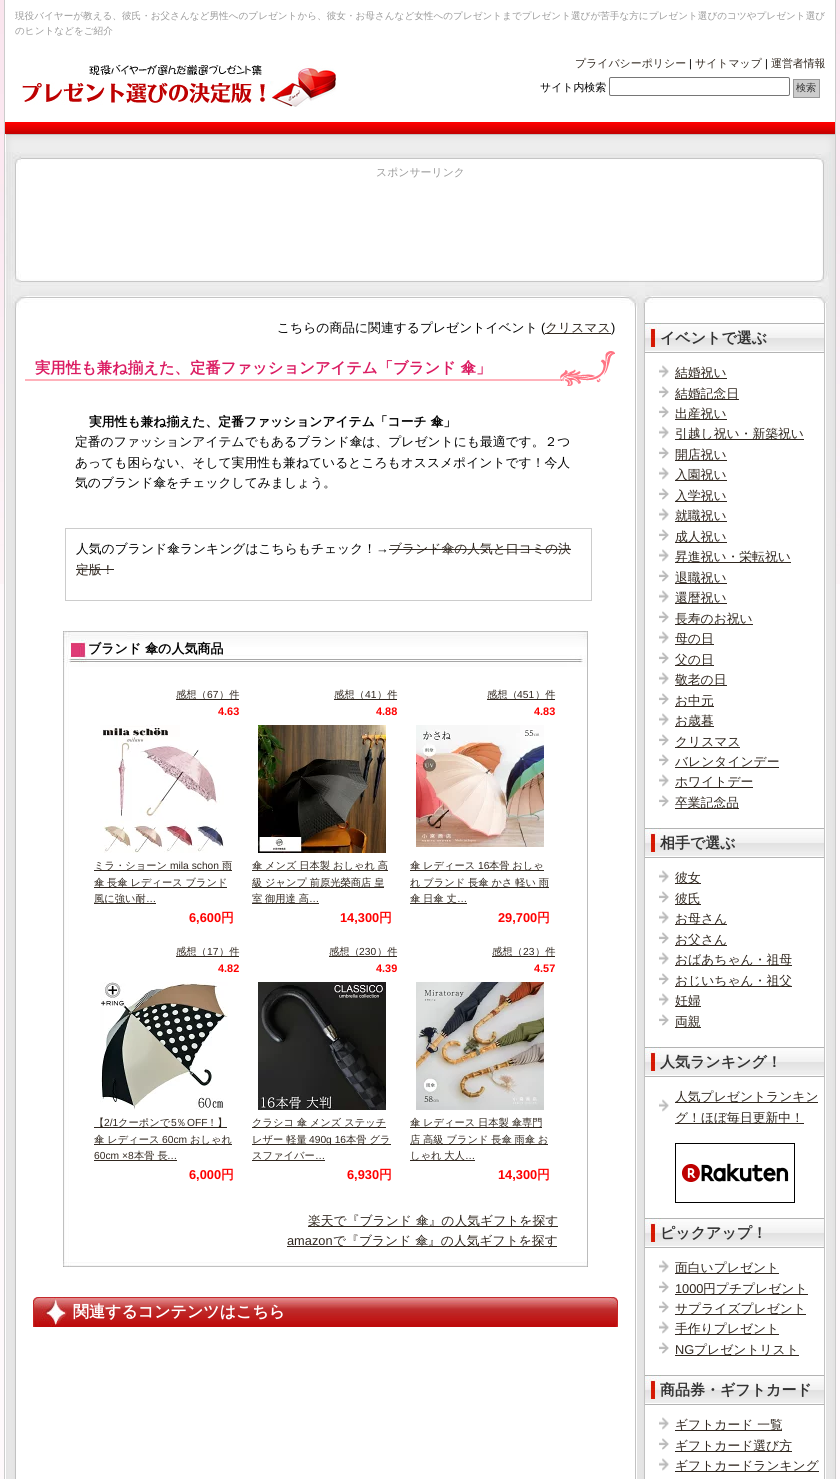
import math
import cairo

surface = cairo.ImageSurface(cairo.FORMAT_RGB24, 840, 1479)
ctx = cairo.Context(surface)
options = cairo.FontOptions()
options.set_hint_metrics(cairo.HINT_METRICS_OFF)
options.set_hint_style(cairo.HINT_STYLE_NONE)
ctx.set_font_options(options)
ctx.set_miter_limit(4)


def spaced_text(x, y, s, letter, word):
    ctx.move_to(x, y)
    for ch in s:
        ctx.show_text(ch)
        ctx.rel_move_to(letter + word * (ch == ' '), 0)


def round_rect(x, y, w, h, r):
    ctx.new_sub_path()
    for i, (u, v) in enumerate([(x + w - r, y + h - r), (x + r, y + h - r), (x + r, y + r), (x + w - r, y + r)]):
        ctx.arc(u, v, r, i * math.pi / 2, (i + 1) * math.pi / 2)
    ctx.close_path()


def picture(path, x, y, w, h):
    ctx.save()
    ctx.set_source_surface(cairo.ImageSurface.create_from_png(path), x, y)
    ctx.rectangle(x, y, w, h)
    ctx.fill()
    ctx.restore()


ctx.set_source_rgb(0.996, 0.976, 0.984)
ctx.paint()
picture("img1.png", 0, 0, 840, 584)
picture("img2.png", 5, 47, 830, 1432)
ctx.set_source_rgb(0.8, 0.8, 0.8)
ctx.rectangle(835, 0, 1, 1479)
ctx.fill()
ctx.rectangle(4, 0, 1, 1479)
ctx.fill()
ctx.set_source_rgb(1, 1, 1)
ctx.rectangle(5, 0, 830, 47)
ctx.fill()
ctx.select_font_face("WenQuanYi Zen Hei Medium")
ctx.set_font_size(9.6)
ctx.set_source_rgb(0.6, 0.6, 0.6)
ctx.move_to(15, 19)
ctx.show_text("現役バイヤーが教える、彼氏・お父さんなど男性へのプレゼントから、彼女・お母さんなど女性へのプレゼントまでプレゼント選びが苦手な方にプレゼント選びのコツやプレゼント選び")
ctx.move_to(15, 34)
ctx.show_text("のヒントなどをご紹介")
ctx.set_source_rgb(1, 1, 1)
ctx.rectangle(6, 47, 829, 75)
ctx.fill()
picture("img3.png", 22, 64, 315, 43)
ctx.set_font_size(10.9)
ctx.set_source_rgb(0.188, 0.153, 0.122)
ctx.move_to(575, 67)
ctx.show_text("プライバシーポリシー")
ctx.select_font_face("Liberation Sans")
ctx.set_source_rgb(0, 0, 0)
ctx.move_to(689, 67)
ctx.show_text("|")
ctx.select_font_face("WenQuanYi Zen Hei Medium")
ctx.set_source_rgb(0.188, 0.153, 0.122)
ctx.move_to(695, 67)
ctx.show_text("サイトマップ")
ctx.select_font_face("Liberation Sans")
ctx.set_source_rgb(0, 0, 0)
ctx.move_to(765, 67)
ctx.show_text("|")
ctx.select_font_face("WenQuanYi Zen Hei Medium")
ctx.set_source_rgb(0.188, 0.153, 0.122)
ctx.move_to(771, 67)
ctx.show_text("運営者情報")
ctx.set_source_rgb(0, 0, 0)
ctx.move_to(540, 91)
ctx.show_text("サイト内検索")
round_rect(609.5, 77.5, 180, 18, 1.5)
ctx.set_source_rgb(0.463, 0.463, 0.463)
ctx.set_line_width(1)
ctx.stroke()
ctx.set_source_rgb(0.8, 0.8, 0.8)
ctx.rectangle(793.5, 79.5, 26, 18)
ctx.fill_preserve()
ctx.set_source_rgb(0.6, 0.6, 0.6)
ctx.stroke()
ctx.set_font_size(10)
ctx.set_source_rgb(0.2, 0.2, 0.2)
ctx.move_to(796, 91)
ctx.show_text("検索")
picture("img4.png", 5, 122, 830, 49)
picture("img5.png", 5, 152, 826, 12)
picture("img6.png", 5, 164, 826, 107)
ctx.set_font_size(10.9)
ctx.set_source_rgb(0.6, 0.6, 0.6)
ctx.move_to(376, 176)
ctx.show_text("スポンサーリンク")
picture("img7.png", 5, 271, 824, 37)
ctx.set_font_size(12.8)
ctx.set_source_rgb(0, 0, 0)
ctx.move_to(277, 332)
ctx.show_text("こちらの商品に関連するプレゼントイベント")
ctx.select_font_face("Liberation Sans")
ctx.move_to(541, 332)
ctx.show_text("(")
ctx.set_source_rgb(0.188, 0.153, 0.122)
ctx.rectangle(545, 333, 66, 1)
ctx.fill()
ctx.select_font_face("WenQuanYi Zen Hei Medium")
ctx.move_to(545, 332)
ctx.show_text("クリスマス")
ctx.select_font_face("Liberation Sans")
ctx.set_source_rgb(0, 0, 0)
ctx.move_to(611, 332)
ctx.show_text(")")
picture("img8.png", 25, 351, 590, 35)
ctx.select_font_face("WenQuanYi Zen Hei", cairo.FONT_SLANT_NORMAL, cairo.FONT_WEIGHT_BOLD)
ctx.set_font_size(15.35)
ctx.set_source_rgb(0.859, 0.11, 0.384)
ctx.move_to(35, 373)
ctx.show_text("実用性も兼ね揃えた、定番ファッションアイテム「ブランド 傘」")
ctx.set_font_size(12.8)
ctx.set_source_rgb(0, 0, 0)
ctx.move_to(89, 426)
ctx.show_text("実用性も兼ね揃えた、定番ファッションアイテム「コーチ 傘」")
ctx.select_font_face("WenQuanYi Zen Hei Medium")
ctx.move_to(75, 446)
ctx.show_text("定番のファッションアイテムでもあるブランド傘は、プレゼントにも最適です。２つ")
ctx.move_to(75, 467)
ctx.show_text("あっても困らない、そして実用性も兼ねているところもオススメポイントです！今人")
ctx.move_to(75, 487)
ctx.show_text("気のブランド傘をチェックしてみましょう。")
ctx.rectangle(65.5, 528.5, 526, 72)
ctx.set_source_rgb(0.8, 0.8, 0.8)
ctx.stroke()
ctx.set_source_rgb(0, 0, 0)
ctx.move_to(76, 553)
ctx.show_text("人気のブランド傘ランキングはこちらもチェック！")
ctx.select_font_face("Liberation Sans")
ctx.move_to(376, 553)
ctx.show_text("→")
ctx.select_font_face("WenQuanYi Zen Hei Medium")
ctx.set_source_rgb(0.188, 0.153, 0.122)
ctx.move_to(389, 553)
ctx.show_text("ブランド傘の人気と口コミの決")
ctx.rectangle(389, 549, 182, 1)
ctx.fill()
ctx.move_to(76, 574)
ctx.show_text("定版！")
ctx.rectangle(76, 569, 38, 1)
ctx.fill()
picture("img9.png", 63, 667, 525, 594)
picture("img10.png", 63, 631, 525, 36)
ctx.select_font_face("WenQuanYi Zen Hei", cairo.FONT_SLANT_NORMAL, cairo.FONT_WEIGHT_BOLD)
ctx.set_font_size(13)
ctx.set_source_rgb(0, 0, 0)
ctx.move_to(88, 653)
ctx.show_text("ブランド 傘の人気商品")
ctx.set_source_rgb(0.188, 0.153, 0.122)
ctx.rectangle(176, 699, 63, 1)
ctx.fill()
ctx.select_font_face("WenQuanYi Zen Hei Medium")
ctx.set_font_size(10.25)
ctx.move_to(176, 698)
ctx.show_text("感想（")
ctx.select_font_face("Liberation Sans")
ctx.move_to(207, 698)
ctx.show_text("67")
ctx.select_font_face("WenQuanYi Zen Hei Medium")
ctx.move_to(219, 698)
ctx.show_text("）件")
ctx.select_font_face("Liberation Sans", cairo.FONT_SLANT_NORMAL, cairo.FONT_WEIGHT_BOLD)
ctx.set_font_size(10.9)
ctx.set_source_rgb(1, 0, 0)
ctx.move_to(218, 715)
ctx.show_text("4.63")
picture("img11.png", 100, 725, 124, 128)
ctx.set_source_rgb(0.188, 0.153, 0.122)
ctx.rectangle(94, 870, 138, 1)
ctx.fill()
ctx.select_font_face("WenQuanYi Zen Hei Medium")
ctx.set_font_size(10.25)
ctx.move_to(94, 869)
ctx.show_text("ミラ・ショーン")
ctx.select_font_face("Liberation Sans")
ctx.move_to(170, 869)
ctx.show_text("mila schon")
ctx.select_font_face("WenQuanYi Zen Hei Medium")
ctx.move_to(222, 869)
ctx.show_text("雨")
ctx.rectangle(94, 887, 133, 1)
ctx.fill()
spaced_text(94, 886, "傘 長傘 レディース ブランド", 0, -0.25)
ctx.rectangle(94, 903, 62, 1)
ctx.fill()
ctx.move_to(94, 902)
ctx.show_text("風に強い耐")
ctx.select_font_face("Liberation Sans")
ctx.move_to(146, 902)
ctx.show_text("…")
ctx.select_font_face("Liberation Sans", cairo.FONT_SLANT_NORMAL, cairo.FONT_WEIGHT_BOLD)
ctx.set_font_size(12.8)
ctx.set_source_rgb(1, 0, 0)
ctx.move_to(189, 922)
ctx.show_text("6,600")
ctx.select_font_face("WenQuanYi Zen Hei", cairo.FONT_SLANT_NORMAL, cairo.FONT_WEIGHT_BOLD)
ctx.move_to(221, 922)
ctx.show_text("円")
ctx.set_source_rgb(0.188, 0.153, 0.122)
ctx.rectangle(334, 699, 63, 1)
ctx.fill()
ctx.select_font_face("WenQuanYi Zen Hei Medium")
ctx.set_font_size(10.25)
ctx.move_to(334, 698)
ctx.show_text("感想（")
ctx.select_font_face("Liberation Sans")
ctx.move_to(365, 698)
ctx.show_text("41")
ctx.select_font_face("WenQuanYi Zen Hei Medium")
ctx.move_to(377, 698)
ctx.show_text("）件")
ctx.select_font_face("Liberation Sans", cairo.FONT_SLANT_NORMAL, cairo.FONT_WEIGHT_BOLD)
ctx.set_font_size(10.9)
ctx.set_source_rgb(1, 0, 0)
ctx.move_to(376, 715)
ctx.show_text("4.88")
picture("img12.png", 258, 725, 128, 128)
ctx.set_source_rgb(0.188, 0.153, 0.122)
ctx.rectangle(252, 870, 136, 1)
ctx.fill()
ctx.select_font_face("WenQuanYi Zen Hei Medium")
ctx.set_font_size(10.25)
spaced_text(252, 869, "傘 メンズ 日本製 おしゃれ 高", 0, -0.25)
ctx.rectangle(252, 887, 132, 1)
ctx.fill()
spaced_text(252, 886, "級 ジャンプ 前原光榮商店 皇", 0, -0.25)
ctx.rectangle(252, 903, 67, 1)
ctx.fill()
spaced_text(252, 902, "室 御用達 高", 0, -0.25)
ctx.select_font_face("Liberation Sans")
ctx.move_to(309, 902)
ctx.show_text("…")
ctx.select_font_face("Liberation Sans", cairo.FONT_SLANT_NORMAL, cairo.FONT_WEIGHT_BOLD)
ctx.set_font_size(12.8)
ctx.set_source_rgb(1, 0, 0)
ctx.move_to(340, 922)
ctx.show_text("14,300")
ctx.select_font_face("WenQuanYi Zen Hei", cairo.FONT_SLANT_NORMAL, cairo.FONT_WEIGHT_BOLD)
ctx.move_to(379, 922)
ctx.show_text("円")
ctx.set_source_rgb(0.188, 0.153, 0.122)
ctx.rectangle(487, 699, 68, 1)
ctx.fill()
ctx.select_font_face("WenQuanYi Zen Hei Medium")
ctx.set_font_size(10.25)
ctx.move_to(487, 698)
ctx.show_text("感想（")
ctx.select_font_face("Liberation Sans")
ctx.move_to(517, 698)
ctx.show_text("451")
ctx.select_font_face("WenQuanYi Zen Hei Medium")
ctx.move_to(535, 698)
ctx.show_text("）件")
ctx.select_font_face("Liberation Sans", cairo.FONT_SLANT_NORMAL, cairo.FONT_WEIGHT_BOLD)
ctx.set_font_size(10.9)
ctx.set_source_rgb(1, 0, 0)
ctx.move_to(534, 715)
ctx.show_text("4.83")
picture("img13.png", 416, 725, 128, 122)
ctx.set_source_rgb(0.188, 0.153, 0.122)
ctx.rectangle(410, 870, 134, 1)
ctx.fill()
ctx.select_font_face("WenQuanYi Zen Hei Medium")
ctx.set_font_size(10.25)
spaced_text(410, 869, "傘 レディース", 0, -0.25)
ctx.select_font_face("Liberation Sans")
ctx.move_to(478, 869)
ctx.show_text("16")
ctx.select_font_face("WenQuanYi Zen Hei Medium")
spaced_text(489, 869, "本骨 おしゃ", 0, -0.25)
ctx.rectangle(410, 887, 139, 1)
ctx.fill()
spaced_text(410, 886, "れ ブランド 長傘 かさ 軽い 雨", 0, -0.25)
ctx.rectangle(410, 903, 57, 1)
ctx.fill()
spaced_text(410, 902, "傘 日傘 丈", 0, -0.25)
ctx.select_font_face("Liberation Sans")
ctx.move_to(457, 902)
ctx.show_text("…")
ctx.select_font_face("Liberation Sans", cairo.FONT_SLANT_NORMAL, cairo.FONT_WEIGHT_BOLD)
ctx.set_font_size(12.8)
ctx.set_source_rgb(1, 0, 0)
ctx.move_to(498, 922)
ctx.show_text("29,700")
ctx.select_font_face("WenQuanYi Zen Hei", cairo.FONT_SLANT_NORMAL, cairo.FONT_WEIGHT_BOLD)
ctx.move_to(537, 922)
ctx.show_text("円")
ctx.set_source_rgb(0.188, 0.153, 0.122)
ctx.rectangle(176, 956, 63, 1)
ctx.fill()
ctx.select_font_face("WenQuanYi Zen Hei Medium")
ctx.set_font_size(10.25)
ctx.move_to(176, 955)
ctx.show_text("感想（")
ctx.select_font_face("Liberation Sans")
ctx.move_to(207, 955)
ctx.show_text("17")
ctx.select_font_face("WenQuanYi Zen Hei Medium")
ctx.move_to(219, 955)
ctx.show_text("）件")
ctx.select_font_face("Liberation Sans", cairo.FONT_SLANT_NORMAL, cairo.FONT_WEIGHT_BOLD)
ctx.set_font_size(10.9)
ctx.set_source_rgb(1, 0, 0)
ctx.move_to(218, 972)
ctx.show_text("4.82")
picture("img14.png", 100, 982, 128, 128)
ctx.set_source_rgb(0.188, 0.153, 0.122)
ctx.rectangle(94, 1127, 133, 1)
ctx.fill()
ctx.select_font_face("WenQuanYi Zen Hei Medium")
ctx.set_font_size(10.25)
ctx.move_to(94, 1126)
ctx.show_text("【")
ctx.select_font_face("Liberation Sans")
ctx.move_to(104, 1126)
ctx.show_text("2/1")
ctx.select_font_face("WenQuanYi Zen Hei Medium")
ctx.move_to(118, 1126)
ctx.show_text("クーポンで")
ctx.select_font_face("Liberation Sans")
ctx.move_to(171, 1126)
ctx.show_text("5")
ctx.select_font_face("WenQuanYi Zen Hei Medium")
ctx.move_to(176, 1126)
ctx.show_text("％")
ctx.select_font_face("Liberation Sans")
ctx.move_to(187, 1126)
ctx.show_text("OFF")
ctx.select_font_face("WenQuanYi Zen Hei Medium")
ctx.move_to(207, 1126)
ctx.show_text("！】")
ctx.rectangle(94, 1144, 138, 1)
ctx.fill()
ctx.move_to(94, 1143)
ctx.show_text("傘 レディース")
ctx.select_font_face("Liberation Sans")
ctx.move_to(162, 1143)
ctx.show_text("60cm")
ctx.select_font_face("WenQuanYi Zen Hei Medium")
ctx.move_to(190, 1143)
ctx.show_text("おしゃれ")
ctx.select_font_face("Liberation Sans")
ctx.move_to(94, 1159)
ctx.show_text("60cm ×8")
ctx.rectangle(94, 1160, 83, 1)
ctx.fill()
ctx.select_font_face("WenQuanYi Zen Hei Medium")
ctx.move_to(134, 1159)
ctx.show_text("本骨 長")
ctx.select_font_face("Liberation Sans")
ctx.move_to(167, 1159)
ctx.show_text("…")
ctx.select_font_face("Liberation Sans", cairo.FONT_SLANT_NORMAL, cairo.FONT_WEIGHT_BOLD)
ctx.set_font_size(12.8)
ctx.set_source_rgb(1, 0, 0)
ctx.move_to(189, 1179)
ctx.show_text("6,000")
ctx.select_font_face("WenQuanYi Zen Hei", cairo.FONT_SLANT_NORMAL, cairo.FONT_WEIGHT_BOLD)
ctx.move_to(221, 1179)
ctx.show_text("円")
ctx.set_source_rgb(0.188, 0.153, 0.122)
ctx.rectangle(329, 956, 68, 1)
ctx.fill()
ctx.select_font_face("WenQuanYi Zen Hei Medium")
ctx.set_font_size(10.25)
ctx.move_to(329, 955)
ctx.show_text("感想（")
ctx.select_font_face("Liberation Sans")
ctx.move_to(359, 955)
ctx.show_text("230")
ctx.select_font_face("WenQuanYi Zen Hei Medium")
ctx.move_to(377, 955)
ctx.show_text("）件")
ctx.select_font_face("Liberation Sans", cairo.FONT_SLANT_NORMAL, cairo.FONT_WEIGHT_BOLD)
ctx.set_font_size(10.9)
ctx.set_source_rgb(1, 0, 0)
ctx.move_to(376, 972)
ctx.show_text("4.39")
picture("img15.png", 258, 982, 128, 128)
ctx.set_source_rgb(0.188, 0.153, 0.122)
ctx.rectangle(252, 1127, 134, 1)
ctx.fill()
ctx.select_font_face("WenQuanYi Zen Hei Medium")
ctx.set_font_size(10.25)
spaced_text(252, 1126, "クラシコ 傘 メンズ ステッチ", 0, -0.25)
ctx.rectangle(252, 1144, 139, 1)
ctx.fill()
ctx.move_to(252, 1143)
ctx.show_text("レザー 軽量")
ctx.select_font_face("Liberation Sans")
ctx.move_to(309, 1143)
ctx.show_text("490g 16")
ctx.select_font_face("WenQuanYi Zen Hei Medium")
ctx.move_to(346, 1143)
ctx.show_text("本骨 グラ")
ctx.rectangle(252, 1160, 73, 1)
ctx.fill()
ctx.move_to(252, 1159)
ctx.show_text("スファイバー")
ctx.select_font_face("Liberation Sans")
ctx.move_to(315, 1159)
ctx.show_text("…")
ctx.select_font_face("Liberation Sans", cairo.FONT_SLANT_NORMAL, cairo.FONT_WEIGHT_BOLD)
ctx.set_font_size(12.8)
ctx.set_source_rgb(1, 0, 0)
ctx.move_to(347, 1179)
ctx.show_text("6,930")
ctx.select_font_face("WenQuanYi Zen Hei", cairo.FONT_SLANT_NORMAL, cairo.FONT_WEIGHT_BOLD)
ctx.move_to(379, 1179)
ctx.show_text("円")
ctx.set_source_rgb(0.188, 0.153, 0.122)
ctx.rectangle(492, 956, 63, 1)
ctx.fill()
ctx.select_font_face("WenQuanYi Zen Hei Medium")
ctx.set_font_size(10.25)
ctx.move_to(492, 955)
ctx.show_text("感想（")
ctx.select_font_face("Liberation Sans")
ctx.move_to(523, 955)
ctx.show_text("23")
ctx.select_font_face("WenQuanYi Zen Hei Medium")
ctx.move_to(535, 955)
ctx.show_text("）件")
ctx.select_font_face("Liberation Sans", cairo.FONT_SLANT_NORMAL, cairo.FONT_WEIGHT_BOLD)
ctx.set_font_size(10.9)
ctx.set_source_rgb(1, 0, 0)
ctx.move_to(534, 972)
ctx.show_text("4.57")
picture("img16.png", 416, 982, 128, 128)
ctx.set_source_rgb(0.188, 0.153, 0.122)
ctx.rectangle(410, 1127, 132, 1)
ctx.fill()
ctx.select_font_face("WenQuanYi Zen Hei Medium")
ctx.set_font_size(10.25)
spaced_text(410, 1126, "傘 レディース 日本製 傘専門", 0, -0.25)
ctx.rectangle(410, 1144, 138, 1)
ctx.fill()
spaced_text(410, 1143, "店 高級 ブランド 長傘 雨傘 お", 0, -0.25)
ctx.rectangle(410, 1160, 65, 1)
ctx.fill()
spaced_text(410, 1159, "しゃれ 大人", 0, -0.25)
ctx.select_font_face("Liberation Sans")
ctx.move_to(465, 1159)
ctx.show_text("…")
ctx.select_font_face("Liberation Sans", cairo.FONT_SLANT_NORMAL, cairo.FONT_WEIGHT_BOLD)
ctx.set_font_size(12.8)
ctx.set_source_rgb(1, 0, 0)
ctx.move_to(498, 1179)
ctx.show_text("14,300")
ctx.select_font_face("WenQuanYi Zen Hei", cairo.FONT_SLANT_NORMAL, cairo.FONT_WEIGHT_BOLD)
ctx.move_to(537, 1179)
ctx.show_text("円")
ctx.set_source_rgb(0.188, 0.153, 0.122)
ctx.rectangle(308, 1226, 250, 1)
ctx.fill()
ctx.select_font_face("WenQuanYi Zen Hei Medium")
ctx.move_to(308, 1225)
ctx.show_text("楽天で『ブランド 傘』の人気ギフトを探す")
ctx.select_font_face("Liberation Sans")
ctx.move_to(287, 1245)
ctx.show_text("amazon")
ctx.rectangle(287, 1246, 270, 1)
ctx.fill()
ctx.select_font_face("WenQuanYi Zen Hei Medium")
ctx.move_to(333, 1245)
ctx.show_text("で『ブランド 傘』の人気ギフトを探す")
picture("img17.png", 63, 1261, 525, 6)
picture("img18.png", 33, 1297, 585, 30)
ctx.select_font_face("WenQuanYi Zen Hei", cairo.FONT_SLANT_NORMAL, cairo.FONT_WEIGHT_BOLD)
ctx.set_font_size(16)
ctx.set_source_rgb(1, 1, 1)
ctx.move_to(73, 1317)
ctx.show_text("関連するコンテンツはこちら")
picture("img19.png", 645, 323, 179, 30)
ctx.set_font_size(15)
ctx.set_source_rgb(0.2, 0.2, 0.2)
ctx.move_to(660, 343)
ctx.show_text("イベントで選ぶ")
picture("img20.png", 659, 365, 10, 13)
ctx.set_source_rgb(0.188, 0.153, 0.122)
ctx.rectangle(675, 378, 52, 1)
ctx.fill()
ctx.select_font_face("WenQuanYi Zen Hei Medium")
ctx.set_font_size(12.8)
ctx.move_to(675, 377)
ctx.show_text("結婚祝い")
picture("img21.png", 659, 386, 10, 12)
ctx.rectangle(675, 399, 64, 1)
ctx.fill()
ctx.move_to(675, 398)
ctx.show_text("結婚記念日")
picture("img21.png", 659, 406, 10, 12)
ctx.rectangle(675, 419, 52, 1)
ctx.fill()
ctx.move_to(675, 418)
ctx.show_text("出産祝い")
picture("img22.png", 659, 426, 10, 13)
ctx.rectangle(675, 439, 129, 1)
ctx.fill()
ctx.move_to(675, 438)
ctx.show_text("引越し祝い・新築祝い")
picture("img21.png", 659, 447, 10, 12)
ctx.rectangle(675, 460, 52, 1)
ctx.fill()
ctx.move_to(675, 459)
ctx.show_text("開店祝い")
picture("img22.png", 659, 467, 10, 13)
ctx.rectangle(675, 480, 52, 1)
ctx.fill()
ctx.move_to(675, 479)
ctx.show_text("入園祝い")
picture("img21.png", 659, 488, 10, 12)
ctx.rectangle(675, 501, 52, 1)
ctx.fill()
ctx.move_to(675, 500)
ctx.show_text("入学祝い")
picture("img20.png", 659, 508, 10, 13)
ctx.rectangle(675, 521, 52, 1)
ctx.fill()
ctx.move_to(675, 520)
ctx.show_text("就職祝い")
picture("img21.png", 659, 529, 10, 12)
ctx.rectangle(675, 542, 52, 1)
ctx.fill()
ctx.move_to(675, 541)
ctx.show_text("成人祝い")
picture("img20.png", 659, 549, 10, 13)
ctx.rectangle(675, 562, 116, 1)
ctx.fill()
ctx.move_to(675, 561)
ctx.show_text("昇進祝い・栄転祝い")
picture("img21.png", 659, 570, 10, 12)
ctx.rectangle(675, 583, 52, 1)
ctx.fill()
ctx.move_to(675, 582)
ctx.show_text("退職祝い")
picture("img22.png", 659, 590, 10, 13)
ctx.rectangle(675, 603, 52, 1)
ctx.fill()
ctx.move_to(675, 602)
ctx.show_text("還暦祝い")
picture("img21.png", 659, 611, 10, 12)
ctx.rectangle(675, 624, 78, 1)
ctx.fill()
ctx.move_to(675, 623)
ctx.show_text("長寿のお祝い")
picture("img22.png", 659, 631, 10, 13)
ctx.rectangle(675, 644, 39, 1)
ctx.fill()
ctx.move_to(675, 643)
ctx.show_text("母の日")
picture("img21.png", 659, 652, 10, 12)
ctx.rectangle(675, 665, 39, 1)
ctx.fill()
ctx.move_to(675, 664)
ctx.show_text("父の日")
picture("img22.png", 659, 672, 10, 13)
ctx.rectangle(675, 685, 52, 1)
ctx.fill()
ctx.move_to(675, 684)
ctx.show_text("敬老の日")
picture("img21.png", 659, 693, 10, 12)
ctx.rectangle(675, 706, 39, 1)
ctx.fill()
ctx.move_to(675, 705)
ctx.show_text("お中元")
picture("img22.png", 659, 713, 10, 13)
ctx.rectangle(675, 726, 39, 1)
ctx.fill()
ctx.move_to(675, 725)
ctx.show_text("お歳暮")
picture("img21.png", 659, 734, 10, 12)
ctx.rectangle(675, 747, 65, 1)
ctx.fill()
ctx.move_to(675, 746)
ctx.show_text("クリスマス")
picture("img21.png", 659, 754, 10, 12)
ctx.rectangle(675, 767, 104, 1)
ctx.fill()
ctx.move_to(675, 766)
ctx.show_text("バレンタインデー")
picture("img22.png", 659, 774, 10, 13)
ctx.rectangle(675, 787, 78, 1)
ctx.fill()
ctx.move_to(675, 786)
ctx.show_text("ホワイトデー")
picture("img21.png", 659, 795, 10, 12)
ctx.rectangle(675, 808, 64, 1)
ctx.fill()
ctx.move_to(675, 807)
ctx.show_text("卒業記念品")
picture("img19.png", 645, 828, 179, 30)
ctx.select_font_face("WenQuanYi Zen Hei", cairo.FONT_SLANT_NORMAL, cairo.FONT_WEIGHT_BOLD)
ctx.set_font_size(15)
ctx.set_source_rgb(0.2, 0.2, 0.2)
ctx.move_to(660, 848)
ctx.show_text("相手で選ぶ")
picture("img22.png", 659, 870, 10, 13)
ctx.set_source_rgb(0.188, 0.153, 0.122)
ctx.rectangle(675, 883, 26, 1)
ctx.fill()
ctx.select_font_face("WenQuanYi Zen Hei Medium")
ctx.set_font_size(12.8)
ctx.move_to(675, 882)
ctx.show_text("彼女")
picture("img21.png", 659, 891, 10, 12)
ctx.rectangle(675, 904, 26, 1)
ctx.fill()
ctx.move_to(675, 903)
ctx.show_text("彼氏")
picture("img22.png", 659, 911, 10, 13)
ctx.rectangle(675, 924, 52, 1)
ctx.fill()
ctx.move_to(675, 923)
ctx.show_text("お母さん")
picture("img21.png", 659, 932, 10, 12)
ctx.rectangle(675, 945, 52, 1)
ctx.fill()
ctx.move_to(675, 944)
ctx.show_text("お父さん")
picture("img22.png", 659, 952, 10, 13)
ctx.rectangle(675, 965, 117, 1)
ctx.fill()
ctx.move_to(675, 964)
ctx.show_text("おばあちゃん・祖母")
picture("img21.png", 659, 973, 10, 12)
ctx.rectangle(675, 986, 117, 1)
ctx.fill()
ctx.move_to(675, 985)
ctx.show_text("おじいちゃん・祖父")
picture("img22.png", 659, 993, 10, 13)
ctx.rectangle(675, 1006, 26, 1)
ctx.fill()
ctx.move_to(675, 1005)
ctx.show_text("妊婦")
picture("img21.png", 659, 1014, 10, 12)
ctx.rectangle(675, 1027, 26, 1)
ctx.fill()
ctx.move_to(675, 1026)
ctx.show_text("両親")
picture("img19.png", 645, 1047, 179, 30)
ctx.select_font_face("WenQuanYi Zen Hei", cairo.FONT_SLANT_NORMAL, cairo.FONT_WEIGHT_BOLD)
ctx.set_font_size(15)
ctx.set_source_rgb(0.2, 0.2, 0.2)
ctx.move_to(660, 1067)
ctx.show_text("人気ランキング！")
picture("img23.png", 659, 1099, 10, 13)
ctx.set_source_rgb(0.188, 0.153, 0.122)
ctx.rectangle(675, 1102, 143, 1)
ctx.fill()
ctx.select_font_face("WenQuanYi Zen Hei Medium")
ctx.set_font_size(12.8)
ctx.move_to(675, 1101)
ctx.show_text("人気プレゼントランキン")
ctx.rectangle(675, 1123, 129, 1)
ctx.fill()
ctx.move_to(675, 1122)
ctx.show_text("グ！ほぼ毎日更新中！")
picture("img24.png", 675, 1143, 120, 60)
picture("img19.png", 645, 1218, 179, 30)
ctx.select_font_face("WenQuanYi Zen Hei", cairo.FONT_SLANT_NORMAL, cairo.FONT_WEIGHT_BOLD)
ctx.set_font_size(15)
ctx.set_source_rgb(0.2, 0.2, 0.2)
ctx.move_to(660, 1238)
ctx.show_text("ピックアップ！")
picture("img22.png", 659, 1260, 10, 13)
ctx.set_source_rgb(0.188, 0.153, 0.122)
ctx.rectangle(675, 1273, 104, 1)
ctx.fill()
ctx.select_font_face("WenQuanYi Zen Hei Medium")
ctx.set_font_size(12.8)
ctx.move_to(675, 1272)
ctx.show_text("面白いプレゼント")
picture("img21.png", 659, 1281, 10, 12)
ctx.select_font_face("Liberation Sans")
ctx.move_to(675, 1293)
ctx.show_text("1000")
ctx.rectangle(675, 1294, 133, 1)
ctx.fill()
ctx.select_font_face("WenQuanYi Zen Hei Medium")
ctx.move_to(703, 1293)
ctx.show_text("円プチプレゼント")
picture("img21.png", 659, 1301, 10, 12)
ctx.rectangle(675, 1314, 131, 1)
ctx.fill()
ctx.move_to(675, 1313)
ctx.show_text("サプライズプレゼント")
picture("img22.png", 659, 1321, 10, 13)
ctx.rectangle(675, 1334, 104, 1)
ctx.fill()
ctx.move_to(675, 1333)
ctx.show_text("手作りプレゼント")
picture("img21.png", 659, 1342, 10, 12)
ctx.select_font_face("Liberation Sans")
ctx.move_to(675, 1354)
ctx.show_text("NG")
ctx.rectangle(675, 1355, 124, 1)
ctx.fill()
ctx.select_font_face("WenQuanYi Zen Hei Medium")
ctx.move_to(694, 1354)
ctx.show_text("プレゼントリスト")
picture("img19.png", 645, 1375, 179, 30)
ctx.select_font_face("WenQuanYi Zen Hei", cairo.FONT_SLANT_NORMAL, cairo.FONT_WEIGHT_BOLD)
ctx.set_font_size(15)
ctx.set_source_rgb(0.2, 0.2, 0.2)
ctx.move_to(660, 1395)
ctx.show_text("商品券・ギフトカード")
picture("img22.png", 659, 1417, 10, 13)
ctx.set_source_rgb(0.188, 0.153, 0.122)
ctx.rectangle(675, 1430, 107, 1)
ctx.fill()
ctx.select_font_face("WenQuanYi Zen Hei Medium")
ctx.set_font_size(12.8)
ctx.move_to(675, 1429)
ctx.show_text("ギフトカード 一覧")
picture("img21.png", 659, 1438, 10, 12)
ctx.rectangle(675, 1451, 117, 1)
ctx.fill()
ctx.move_to(675, 1450)
ctx.show_text("ギフトカード選び方")
picture("img22.png", 659, 1458, 10, 13)
ctx.rectangle(675, 1471, 144, 1)
ctx.fill()
ctx.move_to(675, 1470)
ctx.show_text("ギフトカードランキング")
surface.write_to_png("page.png")
